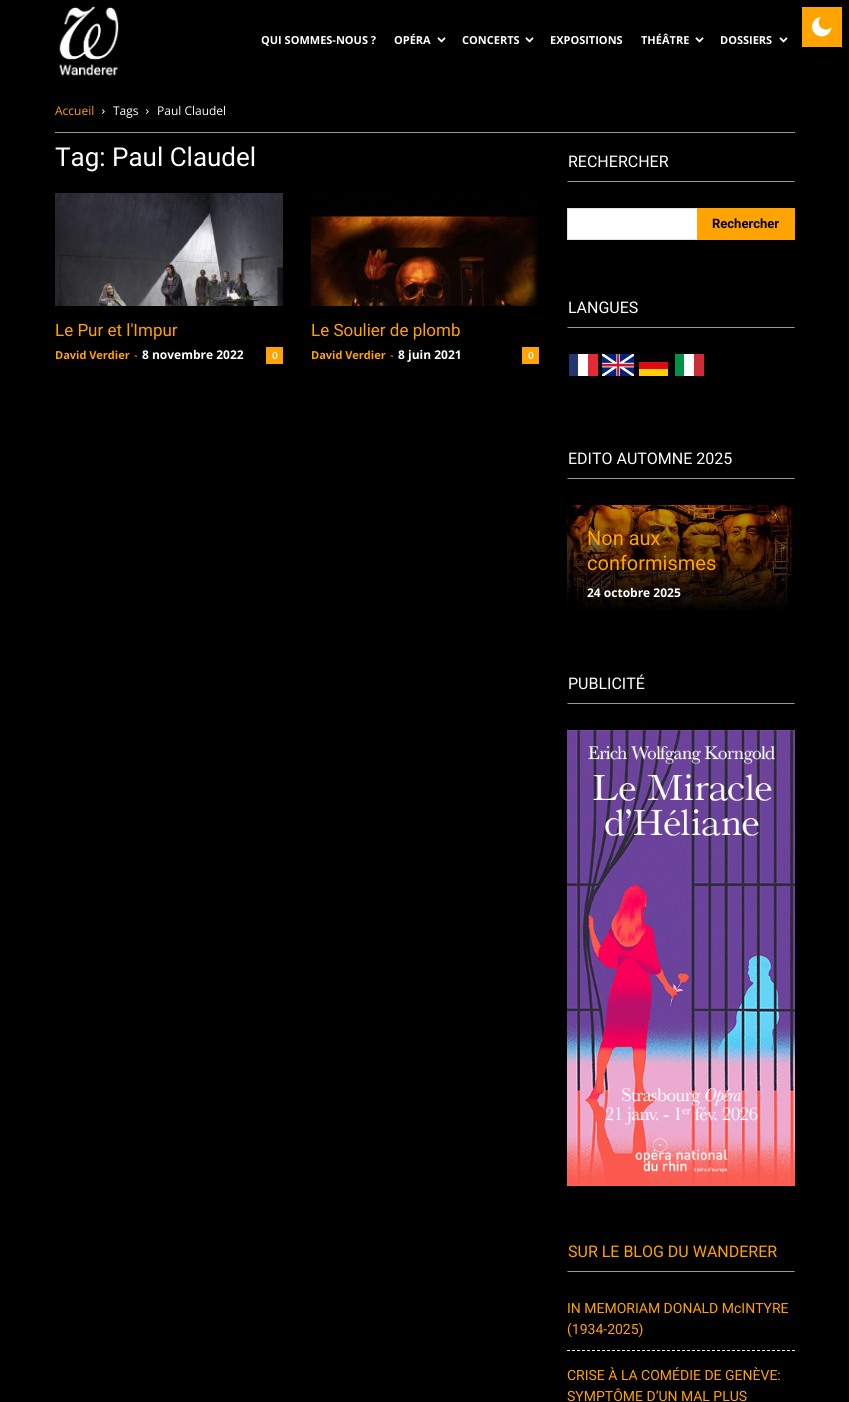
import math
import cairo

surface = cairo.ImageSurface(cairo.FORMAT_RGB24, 849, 1402)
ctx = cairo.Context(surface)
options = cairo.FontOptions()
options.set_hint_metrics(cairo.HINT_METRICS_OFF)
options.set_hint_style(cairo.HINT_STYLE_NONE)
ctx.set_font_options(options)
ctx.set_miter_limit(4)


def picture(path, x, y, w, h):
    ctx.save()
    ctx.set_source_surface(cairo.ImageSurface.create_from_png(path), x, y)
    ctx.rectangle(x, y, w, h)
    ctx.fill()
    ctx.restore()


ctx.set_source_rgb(0, 0, 0)
ctx.paint()
ctx.set_source_rgb(1, 0.639, 0.004)
ctx.rectangle(802, 7, 40, 40)
ctx.fill()
picture("img1.png", 811, 17, 21, 20)
picture("img2.png", 59, 6, 60, 70)
ctx.select_font_face("Open Sans", cairo.FONT_SLANT_NORMAL, cairo.FONT_WEIGHT_BOLD)
ctx.set_font_size(11)
ctx.set_source_rgb(1, 1, 1)
ctx.move_to(261, 44)
ctx.show_text("QUI SOMMES-NOUS ?")
ctx.move_to(394, 44)
ctx.show_text("OPÉRA")
picture("img3.png", 437, 37, 9, 6)
ctx.move_to(462, 44)
ctx.show_text("CONCERTS")
picture("img3.png", 525, 37, 9, 6)
ctx.move_to(550, 44)
ctx.show_text("EXPOSITIONS")
ctx.move_to(641, 44)
ctx.show_text("THÉÂTRE")
picture("img3.png", 695, 37, 9, 6)
ctx.move_to(720, 44)
ctx.show_text("DOSSIERS")
picture("img3.png", 779, 37, 9, 6)
ctx.set_source_rgb(0.6, 0.6, 0.6)
ctx.rectangle(55, 132, 740, 1)
ctx.fill()
ctx.select_font_face("Open Sans")
ctx.set_font_size(12)
ctx.set_source_rgb(1, 0.639, 0.004)
ctx.move_to(55, 115)
ctx.show_text("Accueil")
picture("img4.png", 102, 109, 3, 5)
ctx.set_source_rgb(1, 1, 1)
ctx.move_to(113, 115)
ctx.show_text("Tags")
picture("img4.png", 146, 109, 3, 5)
ctx.move_to(157, 115)
ctx.show_text("Paul Claudel")
ctx.select_font_face("Roboto")
ctx.set_font_size(26)
ctx.move_to(55, 166)
ctx.show_text("Tag: Paul Claudel")
picture("img5.png", 55, 193, 228, 113)
ctx.set_font_size(17)
ctx.set_source_rgb(1, 0.639, 0.004)
ctx.move_to(55, 336)
ctx.show_text("Le Pur et l'Impur")
ctx.select_font_face("Open Sans", cairo.FONT_SLANT_NORMAL, cairo.FONT_WEIGHT_BOLD)
ctx.set_font_size(11)
ctx.move_to(55, 359)
ctx.show_text("David Verdier")
ctx.select_font_face("Open Sans")
ctx.set_source_rgb(0.8, 0.8, 0.8)
ctx.move_to(134, 359)
ctx.show_text("-")
ctx.select_font_face("Open Sans", cairo.FONT_SLANT_NORMAL, cairo.FONT_WEIGHT_BOLD)
ctx.set_font_size(12)
ctx.set_source_rgb(1, 1, 1)
ctx.move_to(142, 359)
ctx.show_text("8 novembre 2022")
ctx.set_source_rgb(1, 0.639, 0.004)
ctx.rectangle(266, 347, 17, 17)
ctx.fill()
ctx.select_font_face("Open Sans SemiBold")
ctx.set_font_size(10)
ctx.set_source_rgb(1, 1, 1)
ctx.move_to(272, 359)
ctx.show_text("0")
picture("img6.png", 311, 193, 228, 113)
ctx.select_font_face("Roboto")
ctx.set_font_size(17)
ctx.set_source_rgb(1, 0.639, 0.004)
ctx.move_to(311, 336)
ctx.show_text("Le Soulier de plomb")
ctx.select_font_face("Open Sans", cairo.FONT_SLANT_NORMAL, cairo.FONT_WEIGHT_BOLD)
ctx.set_font_size(11)
ctx.move_to(311, 359)
ctx.show_text("David Verdier")
ctx.select_font_face("Open Sans")
ctx.set_source_rgb(0.8, 0.8, 0.8)
ctx.move_to(390, 359)
ctx.show_text("-")
ctx.select_font_face("Open Sans", cairo.FONT_SLANT_NORMAL, cairo.FONT_WEIGHT_BOLD)
ctx.set_font_size(12)
ctx.set_source_rgb(1, 1, 1)
ctx.move_to(398, 359)
ctx.show_text("8 juin 2021")
ctx.set_source_rgb(1, 0.639, 0.004)
ctx.rectangle(522, 347, 17, 17)
ctx.fill()
ctx.select_font_face("Open Sans SemiBold")
ctx.set_font_size(10)
ctx.set_source_rgb(1, 1, 1)
ctx.move_to(528, 359)
ctx.show_text("0")
ctx.set_source_rgb(0.6, 0.6, 0.6)
ctx.new_path()
ctx.move_to(795, 182)
ctx.line_to(567, 182)
ctx.line_to(568, 181)
ctx.line_to(794, 181)
ctx.close_path()
ctx.fill()
ctx.select_font_face("Roboto")
ctx.set_font_size(16)
ctx.set_source_rgb(1, 1, 1)
ctx.move_to(568, 167)
ctx.show_text("RECHERCHER")
ctx.rectangle(568, 209, 129, 30)
ctx.fill()
ctx.set_source_rgb(0.882, 0.882, 0.882)
ctx.rectangle(567, 208, 130, 1)
ctx.fill()
ctx.rectangle(567, 239, 130, 1)
ctx.fill()
ctx.rectangle(567, 208, 1, 32)
ctx.fill()
ctx.set_source_rgb(1, 0.639, 0.004)
ctx.rectangle(697, 208, 98, 32)
ctx.fill()
ctx.select_font_face("Roboto", cairo.FONT_SLANT_NORMAL, cairo.FONT_WEIGHT_BOLD)
ctx.set_font_size(13)
ctx.set_source_rgb(0, 0, 0)
ctx.move_to(712, 228)
ctx.show_text("Rechercher")
ctx.set_source_rgb(0.6, 0.6, 0.6)
ctx.new_path()
ctx.move_to(795, 328)
ctx.line_to(567, 328)
ctx.line_to(568, 327)
ctx.line_to(794, 327)
ctx.close_path()
ctx.fill()
ctx.select_font_face("Roboto")
ctx.set_font_size(16)
ctx.set_source_rgb(1, 1, 1)
ctx.move_to(568, 313)
ctx.show_text("LANGUES")
ctx.set_source_rgb(0.145, 0.208, 0.435)
ctx.rectangle(569, 354, 9, 22)
ctx.fill()
ctx.set_source_rgb(1, 1, 1)
ctx.rectangle(578, 354, 10, 22)
ctx.fill()
ctx.set_source_rgb(0.902, 0.153, 0.212)
ctx.rectangle(588, 354, 10, 22)
ctx.fill()
picture("img7.png", 602, 354, 32, 22)
ctx.set_source_rgb(0.008, 0.008, 0.012)
ctx.rectangle(639, 354, 29, 8)
ctx.fill()
ctx.set_source_rgb(0.867, 0.047, 0.082)
ctx.rectangle(639, 362, 29, 7)
ctx.fill()
ctx.set_source_rgb(1, 0.808, 0.02)
ctx.rectangle(639, 369, 29, 7)
ctx.fill()
ctx.set_source_rgb(0, 0.573, 0.275)
ctx.rectangle(675, 354, 9, 22)
ctx.fill()
ctx.set_source_rgb(1, 1, 1)
ctx.rectangle(684, 354, 10, 22)
ctx.fill()
ctx.set_source_rgb(0.808, 0.176, 0.22)
ctx.rectangle(694, 354, 10, 22)
ctx.fill()
ctx.set_source_rgb(0.6, 0.6, 0.6)
ctx.new_path()
ctx.move_to(795, 479)
ctx.line_to(567, 479)
ctx.line_to(568, 478)
ctx.line_to(794, 478)
ctx.close_path()
ctx.fill()
ctx.set_source_rgb(1, 1, 1)
ctx.move_to(568, 464)
ctx.show_text("EDITO AUTOMNE 2025")
picture("img8.png", 567, 505, 228, 114)
ctx.set_font_size(20)
ctx.set_source_rgb(1, 0.639, 0.004)
ctx.move_to(587, 545)
ctx.show_text("Non aux")
ctx.move_to(587, 570)
ctx.show_text("conformismes")
ctx.select_font_face("Open Sans", cairo.FONT_SLANT_NORMAL, cairo.FONT_WEIGHT_BOLD)
ctx.set_font_size(12)
ctx.set_source_rgb(1, 1, 1)
ctx.move_to(587, 597)
ctx.show_text("24 octobre 2025")
ctx.set_source_rgb(0.6, 0.6, 0.6)
ctx.new_path()
ctx.move_to(795, 704)
ctx.line_to(567, 704)
ctx.line_to(568, 703)
ctx.line_to(794, 703)
ctx.close_path()
ctx.fill()
ctx.select_font_face("Roboto")
ctx.set_font_size(16)
ctx.set_source_rgb(1, 1, 1)
ctx.move_to(568, 689)
ctx.show_text("PUBLICITÉ")
picture("img9.png", 567, 730, 228, 456)
ctx.set_source_rgb(0.6, 0.6, 0.6)
ctx.new_path()
ctx.move_to(795, 1272)
ctx.line_to(567, 1272)
ctx.line_to(568, 1271)
ctx.line_to(794, 1271)
ctx.close_path()
ctx.fill()
ctx.set_source_rgb(1, 0.639, 0.004)
ctx.move_to(568, 1257)
ctx.show_text("SUR LE BLOG DU WANDERER")
ctx.new_path()
ctx.move_to(567, 1350.5)
ctx.line_to(795, 1350.5)
ctx.set_source_rgb(0.945, 0.945, 0.945)
ctx.set_line_width(1)
ctx.set_dash([3, 2])
ctx.stroke()
ctx.select_font_face("Heebo")
ctx.set_font_size(14)
ctx.set_source_rgb(1, 0.639, 0.004)
ctx.move_to(567, 1313)
ctx.show_text("IN MEMORIAM DONALD McINTYRE")
ctx.move_to(567, 1334)
ctx.show_text("(1934-2025)")
ctx.move_to(567, 1380)
ctx.show_text("CRISE À LA COMÉDIE DE GENÈVE:")
ctx.move_to(567, 1401)
ctx.show_text("SYMPTÔME D’UN MAL PLUS")
surface.write_to_png("page.png")
